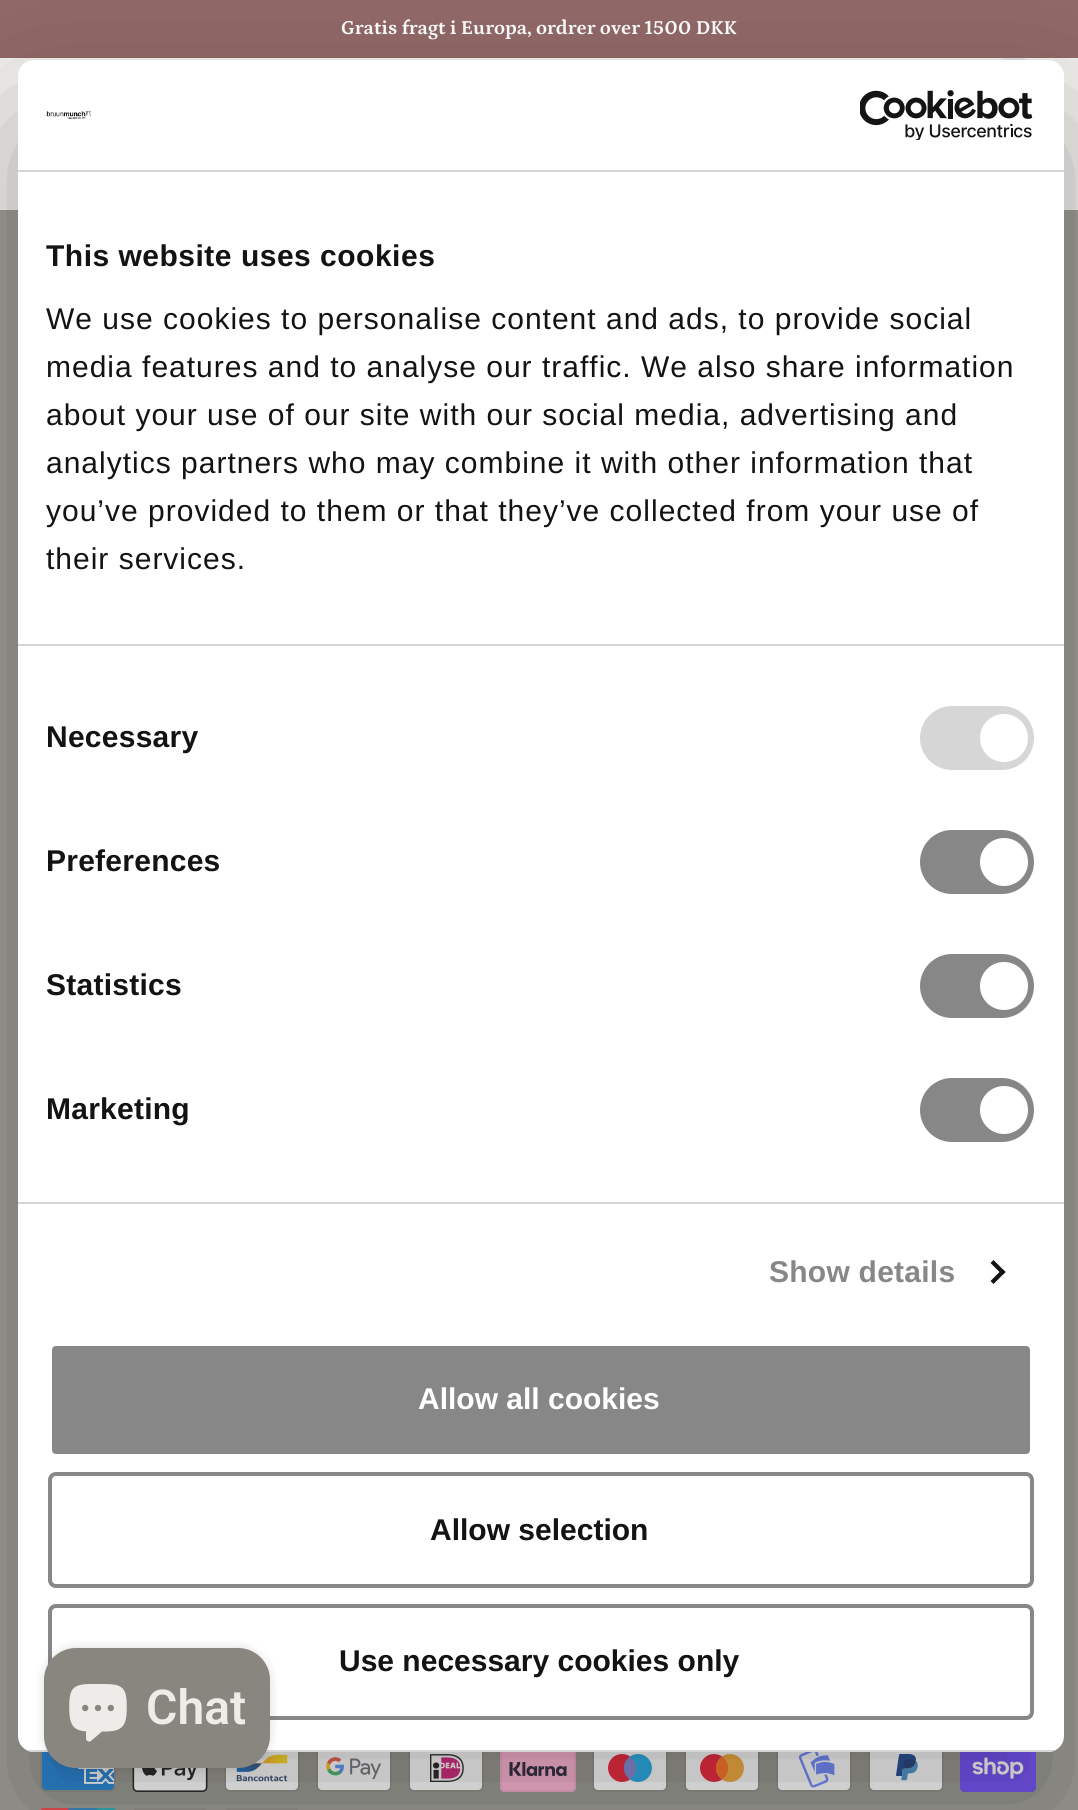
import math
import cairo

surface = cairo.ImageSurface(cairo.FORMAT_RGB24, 1078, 1810)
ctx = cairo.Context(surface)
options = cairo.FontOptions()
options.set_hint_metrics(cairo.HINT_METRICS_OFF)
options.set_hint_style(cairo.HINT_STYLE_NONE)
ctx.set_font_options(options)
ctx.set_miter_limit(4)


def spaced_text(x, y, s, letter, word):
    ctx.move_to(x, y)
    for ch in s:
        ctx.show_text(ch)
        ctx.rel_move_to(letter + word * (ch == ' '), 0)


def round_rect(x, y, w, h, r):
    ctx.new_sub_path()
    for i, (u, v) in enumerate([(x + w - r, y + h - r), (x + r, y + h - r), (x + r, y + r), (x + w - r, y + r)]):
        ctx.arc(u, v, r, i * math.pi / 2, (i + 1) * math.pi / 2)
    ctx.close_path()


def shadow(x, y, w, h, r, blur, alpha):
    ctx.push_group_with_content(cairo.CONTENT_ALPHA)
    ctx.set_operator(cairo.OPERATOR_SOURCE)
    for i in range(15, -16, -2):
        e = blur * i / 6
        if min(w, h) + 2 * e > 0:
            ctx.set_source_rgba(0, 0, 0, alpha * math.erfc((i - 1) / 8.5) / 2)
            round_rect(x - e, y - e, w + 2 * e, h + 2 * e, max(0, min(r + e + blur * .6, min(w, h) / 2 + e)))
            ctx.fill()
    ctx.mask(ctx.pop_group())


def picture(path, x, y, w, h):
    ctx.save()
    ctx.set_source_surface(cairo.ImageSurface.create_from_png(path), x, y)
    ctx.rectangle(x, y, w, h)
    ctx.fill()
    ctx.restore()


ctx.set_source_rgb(0.945, 0.937, 0.925)
ctx.paint()
ctx.set_source_rgb(0.882, 0.871, 0.867)
ctx.arc(1014, 80, 24, 0, 2 * math.pi)
ctx.fill()
ctx.set_source_rgb(0.569, 0.408, 0.408)
ctx.rectangle(0, 0, 1078, 58)
ctx.fill()
ctx.select_font_face("Petrona", cairo.FONT_SLANT_NORMAL, cairo.FONT_WEIGHT_BOLD)
ctx.set_font_size(20)
ctx.set_source_rgb(1, 1, 1)
ctx.move_to(341, 34)
ctx.show_text("Gratis fragt i Europa, ordrer over 1500 DKK")
ctx.set_source_rgb(0.616, 0.612, 0.584)
ctx.rectangle(0, 210, 1078, 1600)
ctx.fill()
picture("img1.png", 40, 1752, 76, 40)
picture("img2.png", 132, 1768, 76, 24)
picture("img3.png", 224, 1752, 76, 40)
picture("img4.png", 316, 1752, 76, 40)
picture("img5.png", 408, 1752, 76, 40)
picture("img6.png", 500, 1752, 76, 40)
picture("img7.png", 592, 1752, 76, 40)
picture("img8.png", 684, 1752, 76, 40)
picture("img9.png", 776, 1752, 76, 40)
picture("img10.png", 868, 1752, 76, 40)
picture("img11.png", 960, 1752, 76, 40)
picture("img12.png", 40, 1808, 76, 2)
picture("img13.png", 134, 1808, 72, 2)
picture("img13.png", 226, 1808, 72, 2)
ctx.set_source_rgb(0, 0, 0)
shadow(18, 124, 1046, 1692, 16, 68, 0.3)
ctx.set_source_rgb(1, 1, 1)
round_rect(18, 60, 1046, 1692, 16)
ctx.fill()
ctx.set_source_rgb(0.839, 0.839, 0.839)
ctx.rectangle(18, 170, 1046, 2)
ctx.fill()
picture("img14.png", 46, 111, 45, 8)
picture("img15.png", 860, 90, 173, 50)
ctx.rectangle(18, 644, 1046, 2)
ctx.fill()
ctx.select_font_face("Liberation Sans", cairo.FONT_SLANT_NORMAL, cairo.FONT_WEIGHT_BOLD)
ctx.set_font_size(30)
ctx.set_source_rgb(0.078, 0.078, 0.078)
spaced_text(46, 266, "This website uses cookies", 0.5, 0)
ctx.select_font_face("Liberation Sans")
spaced_text(46, 329, "We use cookies to personalise content and ads, to provide social", 1, 0)
spaced_text(46, 377, "media features and to analyse our traffic. We also share information", 1, 0)
spaced_text(46, 425, "about your use of our site with our social media, advertising and", 1, 0)
spaced_text(46, 473, "analytics partners who may combine it with other information that", 1, 0)
spaced_text(46, 521, "you’ve provided to them or that they’ve collected from your use of", 1, 0)
spaced_text(46, 569, "their services.", 1, 0)
ctx.set_source_rgb(0.839, 0.839, 0.839)
ctx.rectangle(18, 1202, 1046, 2)
ctx.fill()
ctx.select_font_face("Liberation Sans", cairo.FONT_SLANT_NORMAL, cairo.FONT_WEIGHT_BOLD)
ctx.set_source_rgb(0.078, 0.078, 0.078)
spaced_text(46, 747, "Necessary", 0.25, 0)
ctx.set_source_rgb(0.839, 0.839, 0.839)
round_rect(920, 706, 114, 64, 32)
ctx.fill()
ctx.set_source_rgb(1, 1, 1)
ctx.arc(1004, 738, 24, 0, 2 * math.pi)
ctx.fill()
ctx.set_source_rgb(0.078, 0.078, 0.078)
spaced_text(46, 871, "Preferences", 0.25, 0)
ctx.set_source_rgb(0.529, 0.529, 0.529)
round_rect(920, 830, 114, 64, 32)
ctx.fill()
ctx.set_source_rgb(1, 1, 1)
ctx.arc(1004, 862, 24, 0, 2 * math.pi)
ctx.fill()
ctx.set_source_rgb(0.078, 0.078, 0.078)
spaced_text(46, 995, "Statistics", 0.25, 0)
ctx.set_source_rgb(0.529, 0.529, 0.529)
round_rect(920, 954, 114, 64, 32)
ctx.fill()
ctx.set_source_rgb(1, 1, 1)
ctx.arc(1004, 986, 24, 0, 2 * math.pi)
ctx.fill()
ctx.set_source_rgb(0.078, 0.078, 0.078)
spaced_text(46, 1119, "Marketing", 0.25, 0)
ctx.set_source_rgb(0.529, 0.529, 0.529)
round_rect(920, 1078, 114, 64, 32)
ctx.fill()
ctx.set_source_rgb(1, 1, 1)
ctx.arc(1004, 1110, 24, 0, 2 * math.pi)
ctx.fill()
ctx.set_source_rgb(0.529, 0.529, 0.529)
spaced_text(769, 1282, "Show details", 0.25, 0)
ctx.set_source_rgb(0.078, 0.078, 0.078)
ctx.new_path()
ctx.move_to(993.5, 1260)
ctx.line_to(1005.5, 1272)
ctx.line_to(1002.5, 1275)
ctx.line_to(990.5, 1263)
ctx.close_path()
ctx.fill()
ctx.new_path()
ctx.move_to(1002.5, 1269)
ctx.line_to(1005.5, 1272)
ctx.line_to(993.5, 1284)
ctx.line_to(990.5, 1281)
ctx.close_path()
ctx.fill()
ctx.save()
round_rect(18, 60, 1046, 1692, 16)
ctx.clip()
ctx.set_source_rgb(0.839, 0.839, 0.839)
ctx.rectangle(18, 1750, 1046, 2)
ctx.fill()
ctx.restore()
ctx.set_source_rgb(0.529, 0.529, 0.529)
round_rect(50, 1344, 982, 112, 6)
ctx.fill_preserve()
ctx.set_source_rgb(1, 1, 1)
ctx.set_line_width(4)
ctx.stroke()
ctx.move_to(418, 1409)
ctx.show_text("Allow all cookies")
round_rect(50, 1474, 982, 112, 6)
ctx.set_source_rgb(0.529, 0.529, 0.529)
ctx.stroke()
ctx.set_source_rgb(0.078, 0.078, 0.078)
ctx.move_to(430, 1540)
ctx.show_text("Allow selection")
round_rect(50, 1606, 982, 112, 6)
ctx.set_source_rgb(0.529, 0.529, 0.529)
ctx.stroke()
ctx.set_source_rgb(0.078, 0.078, 0.078)
ctx.move_to(339, 1671)
ctx.show_text("Use necessary cookies only")
ctx.set_source_rgb(0, 0, 0)
shadow(44, 1648, 226, 120, 32, 5, 0.15)
ctx.set_source_rgb(0.533, 0.525, 0.494)
round_rect(44, 1648, 226, 120, 32)
ctx.fill()
picture("img16.png", 69, 1684, 58, 58)
ctx.select_font_face("Roboto SemiBold")
ctx.set_font_size(48)
ctx.set_source_rgb(0.933, 0.922, 0.91)
ctx.move_to(146, 1724)
ctx.show_text("Chat")
surface.write_to_png("page.png")
